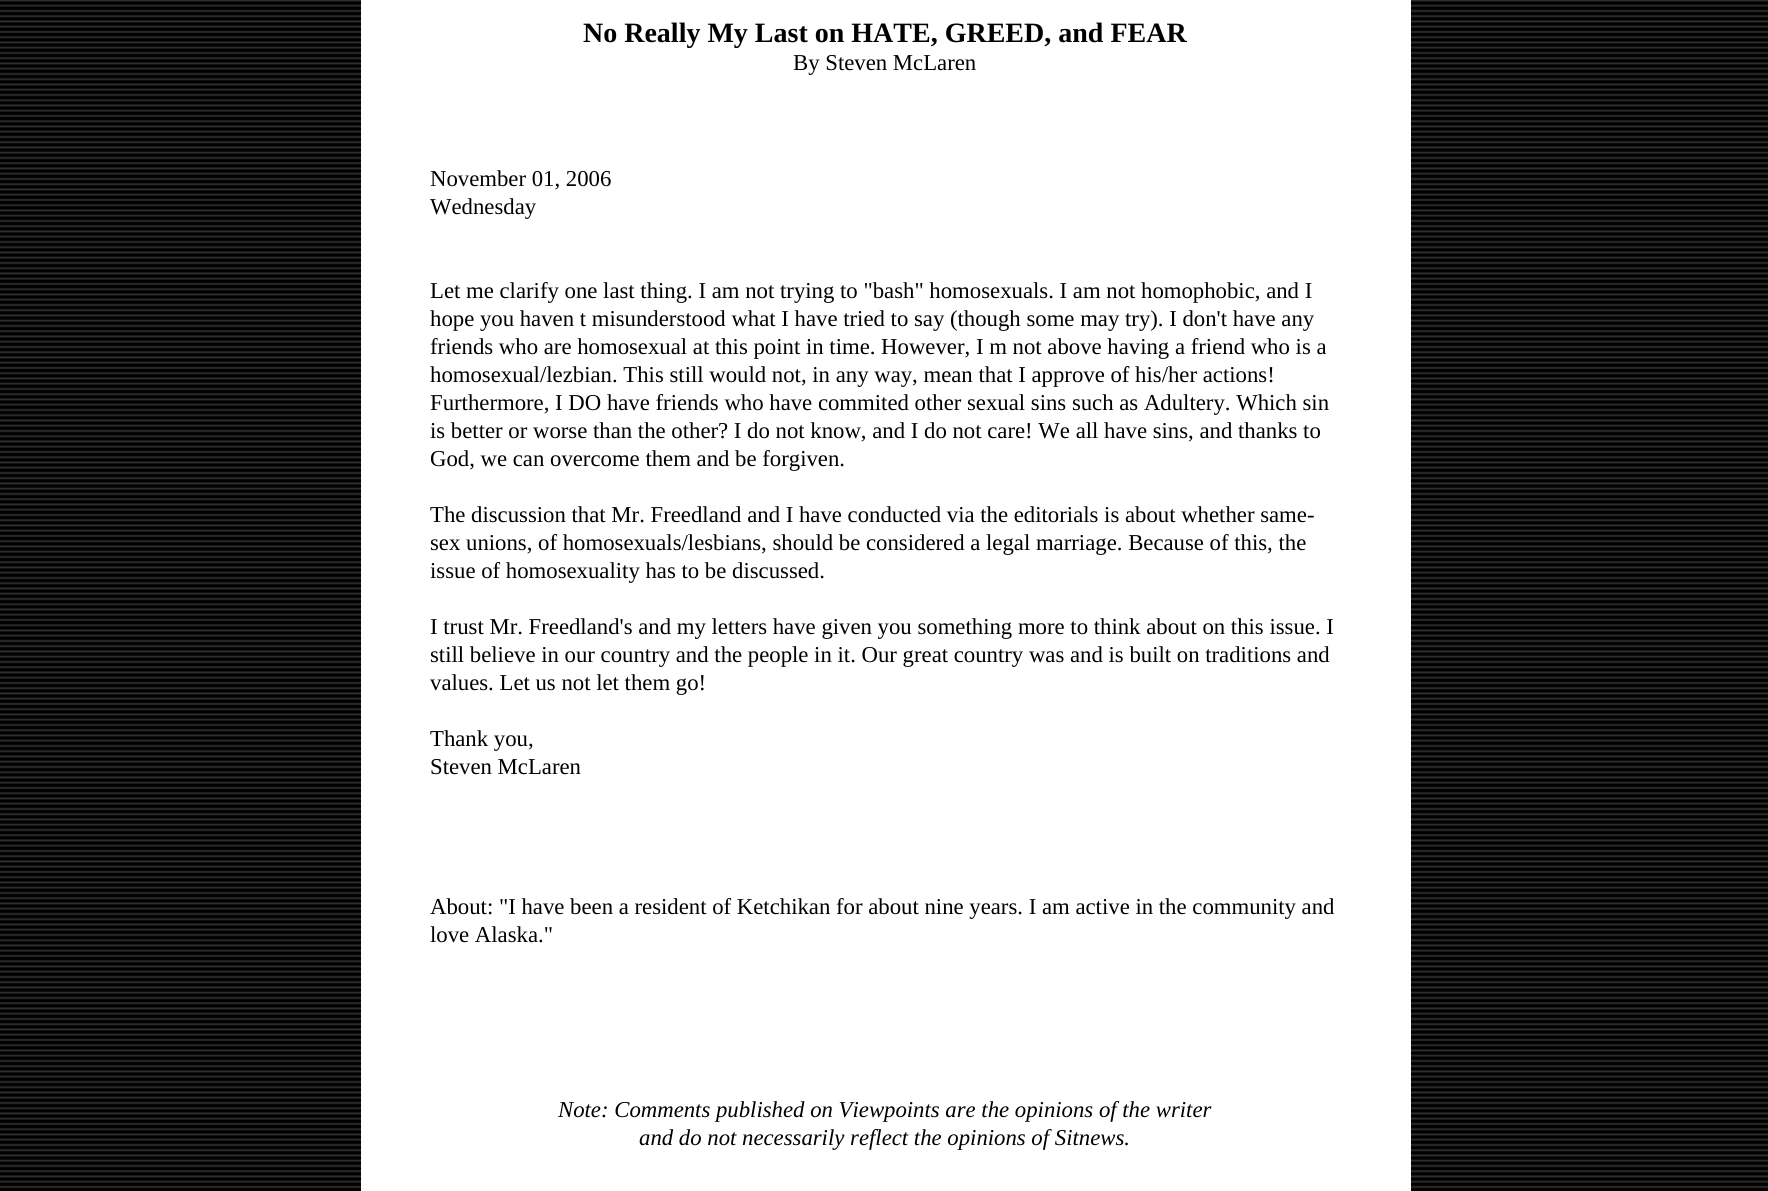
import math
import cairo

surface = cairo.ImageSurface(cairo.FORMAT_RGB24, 1768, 1191)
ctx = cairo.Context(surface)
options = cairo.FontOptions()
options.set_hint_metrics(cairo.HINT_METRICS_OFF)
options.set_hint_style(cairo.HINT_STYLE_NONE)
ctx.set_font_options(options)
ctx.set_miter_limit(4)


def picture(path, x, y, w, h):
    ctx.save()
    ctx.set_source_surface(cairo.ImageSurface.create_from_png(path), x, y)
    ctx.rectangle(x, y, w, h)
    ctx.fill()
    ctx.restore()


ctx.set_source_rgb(0, 0, 0)
ctx.paint()
picture("img1.png", 0, 0, 1768, 1189)
ctx.set_source_rgb(1, 1, 1)
ctx.rectangle(361, 0, 1050, 1191)
ctx.fill()
ctx.select_font_face("Liberation Serif", cairo.FONT_SLANT_NORMAL, cairo.FONT_WEIGHT_BOLD)
ctx.set_font_size(28)
ctx.set_source_rgb(0, 0, 0)
ctx.move_to(583, 42)
ctx.show_text("No Really My Last on HATE, GREED, and FEAR")
ctx.select_font_face("Liberation Serif")
ctx.set_font_size(22.75)
ctx.move_to(793, 70)
ctx.show_text("By Steven McLaren")
ctx.move_to(430, 186)
ctx.show_text("November 01, 2006")
ctx.move_to(430, 214)
ctx.show_text("Wednesday")
ctx.move_to(430, 298)
ctx.show_text("Let me clarify one last thing. I am not trying to \"bash\" homosexuals. I am not homophobic, and I")
ctx.move_to(430, 326)
ctx.show_text("hope you haven t misunderstood what I have tried to say (though some may try). I don't have any")
ctx.move_to(430, 354)
ctx.show_text("friends who are homosexual at this point in time. However, I m not above having a friend who is a")
ctx.move_to(430, 382)
ctx.show_text("homosexual/lezbian. This still would not, in any way, mean that I approve of his/her actions!")
ctx.move_to(430, 410)
ctx.show_text("Furthermore, I DO have friends who have commited other sexual sins such as Adultery. Which sin")
ctx.move_to(430, 438)
ctx.show_text("is better or worse than the other? I do not know, and I do not care! We all have sins, and thanks to")
ctx.move_to(430, 466)
ctx.show_text("God, we can overcome them and be forgiven.")
ctx.move_to(430, 522)
ctx.show_text("The discussion that Mr. Freedland and I have conducted via the editorials is about whether same-")
ctx.move_to(430, 550)
ctx.show_text("sex unions, of homosexuals/lesbians, should be considered a legal marriage. Because of this, the")
ctx.move_to(430, 578)
ctx.show_text("issue of homosexuality has to be discussed.")
ctx.move_to(430, 634)
ctx.show_text("I trust Mr. Freedland's and my letters have given you something more to think about on this issue. I")
ctx.move_to(430, 662)
ctx.show_text("still believe in our country and the people in it. Our great country was and is built on traditions and")
ctx.move_to(430, 690)
ctx.show_text("values. Let us not let them go!")
ctx.move_to(430, 746)
ctx.show_text("Thank you,")
ctx.move_to(430, 774)
ctx.show_text("Steven McLaren")
ctx.move_to(430, 914)
ctx.show_text("About: \"I have been a resident of Ketchikan for about nine years. I am active in the community and")
ctx.move_to(430, 942)
ctx.show_text("love Alaska.\"")
ctx.select_font_face("Liberation Serif", cairo.FONT_SLANT_ITALIC)
ctx.move_to(558, 1117)
ctx.show_text("Note: Comments published on Viewpoints are the opinions of the writer")
ctx.move_to(639, 1145)
ctx.show_text("and do not necessarily reflect the opinions of Sitnews.")
surface.write_to_png("page.png")
